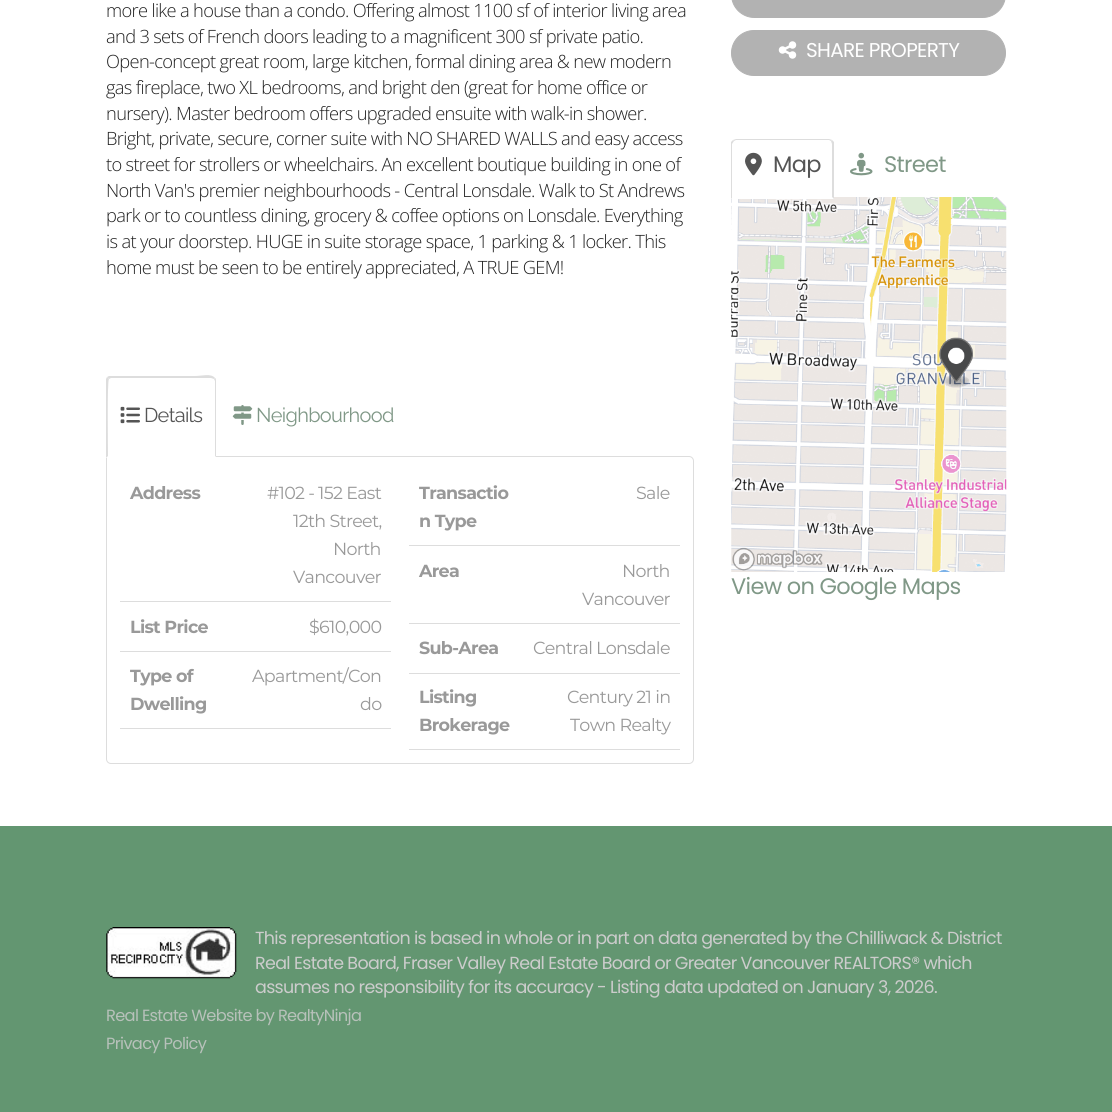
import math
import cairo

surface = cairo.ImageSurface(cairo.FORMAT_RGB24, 1112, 1112)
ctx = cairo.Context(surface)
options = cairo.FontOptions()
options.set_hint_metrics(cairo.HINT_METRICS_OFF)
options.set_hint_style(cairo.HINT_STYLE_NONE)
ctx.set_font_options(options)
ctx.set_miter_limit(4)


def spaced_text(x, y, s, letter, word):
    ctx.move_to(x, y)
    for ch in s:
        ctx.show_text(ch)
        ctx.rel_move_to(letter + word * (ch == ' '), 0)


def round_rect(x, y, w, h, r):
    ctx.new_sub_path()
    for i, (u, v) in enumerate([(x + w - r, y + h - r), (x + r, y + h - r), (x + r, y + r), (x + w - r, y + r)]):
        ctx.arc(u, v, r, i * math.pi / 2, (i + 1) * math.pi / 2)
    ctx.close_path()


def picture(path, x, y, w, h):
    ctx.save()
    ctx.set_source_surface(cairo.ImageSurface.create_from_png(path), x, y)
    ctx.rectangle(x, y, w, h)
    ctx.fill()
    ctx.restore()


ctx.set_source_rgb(1, 1, 1)
ctx.paint()
ctx.select_font_face("Open Sans Light")
ctx.set_font_size(18.3)
ctx.set_source_rgb(0.133, 0.133, 0.133)
spaced_text(106, 17, "more like a house than a condo. Offering almost 1100 sf of interior living area", -0.68, 0)
spaced_text(106, 43, "and 3 sets of French doors leading to a magnificent 300 sf private patio.", -0.68, 0)
spaced_text(106, 68, "Open-concept great room, large kitchen, formal dining area & new modern", -0.68, 0)
spaced_text(106, 94, "gas fireplace, two XL bedrooms, and bright den (great for home office or", -0.68, 0)
spaced_text(106, 120, "nursery). Master bedroom offers upgraded ensuite with walk-in shower.", -0.68, 0)
spaced_text(106, 145, "Bright, private, secure, corner suite with NO SHARED WALLS and easy access", -0.68, 0)
spaced_text(106, 171, "to street for strollers or wheelchairs. An excellent boutique building in one of", -0.68, 0)
spaced_text(106, 197, "North Van's premier neighbourhoods - Central Lonsdale. Walk to St Andrews", -0.68, 0)
spaced_text(106, 222, "park or to countless dining, grocery & coffee options on Lonsdale. Everything", -0.68, 0)
spaced_text(106, 248, "is at your doorstep. HUGE in suite storage space, 1 parking & 1 locker. This", -0.68, 0)
spaced_text(106, 274, "home must be seen to be entirely appreciated, A TRUE GEM!", -0.68, 0)
ctx.new_path()
ctx.move_to(106.5, 456.5)
ctx.line_to(689, 456.5)
ctx.curve_to(691.5, 456.5, 693.5, 458.5, 693.5, 461)
ctx.line_to(693.5, 759)
ctx.curve_to(693.5, 761.5, 691.5, 763.5, 689, 763.5)
ctx.line_to(111, 763.5)
ctx.curve_to(108.5, 763.5, 106.5, 761.5, 106.5, 759)
ctx.close_path()
ctx.set_source_rgb(0.867, 0.867, 0.867)
ctx.set_line_width(1)
ctx.stroke()
ctx.set_source_rgb(1, 1, 1)
ctx.new_path()
ctx.move_to(111, 376)
ctx.line_to(211, 376)
ctx.curve_to(214, 376, 216, 378, 216, 381)
ctx.line_to(216, 458)
ctx.line_to(106, 458)
ctx.line_to(106, 381)
ctx.curve_to(106, 378, 108, 376, 111, 376)
ctx.close_path()
ctx.fill()
ctx.set_source_rgb(0.867, 0.867, 0.867)
ctx.new_path()
ctx.move_to(111, 378)
ctx.line_to(109, 379)
ctx.line_to(107, 377)
ctx.line_to(109, 376)
ctx.line_to(195, 376)
ctx.curve_to(202, 376, 211, 373, 215, 378)
ctx.line_to(214, 379)
ctx.line_to(211, 378)
ctx.close_path()
ctx.fill()
ctx.new_path()
ctx.move_to(215, 378)
ctx.curve_to(216, 378, 216, 380, 216, 381)
ctx.line_to(216, 457)
ctx.line_to(215, 456)
ctx.line_to(215, 381)
ctx.line_to(214, 379)
ctx.close_path()
ctx.fill()
ctx.new_path()
ctx.move_to(106, 458)
ctx.line_to(106, 379)
ctx.line_to(107, 377)
ctx.line_to(109, 379)
ctx.curve_to(107, 380, 108, 448, 108, 456)
ctx.close_path()
ctx.fill()
picture("img1.png", 120, 406, 20, 18)
ctx.select_font_face("Raleway")
ctx.set_font_size(20)
ctx.set_source_rgb(0.333, 0.333, 0.333)
spaced_text(144, 422, "Details", -0.68, 0)
picture("img2.png", 232, 405, 21, 20)
ctx.set_source_rgb(0.502, 0.596, 0.529)
spaced_text(256, 422, "Neighbourhood", -0.68, 0)
ctx.set_source_rgb(0.867, 0.867, 0.867)
ctx.rectangle(120, 601, 271, 1)
ctx.fill()
ctx.select_font_face("Montserrat", cairo.FONT_SLANT_NORMAL, cairo.FONT_WEIGHT_BOLD)
ctx.set_font_size(17.5)
ctx.set_source_rgb(0.6, 0.6, 0.6)
spaced_text(130, 499, "Address", -0.68, 0)
ctx.select_font_face("Montserrat")
spaced_text(267, 499, "#102 - 152 East", -0.68, 0)
spaced_text(293, 527, "12th Street,", -0.68, 0)
spaced_text(333, 555, "North", -0.68, 0)
spaced_text(293, 583, "Vancouver", -0.68, 0)
ctx.set_source_rgb(0.867, 0.867, 0.867)
ctx.rectangle(409, 545, 271, 1)
ctx.fill()
ctx.select_font_face("Montserrat", cairo.FONT_SLANT_NORMAL, cairo.FONT_WEIGHT_BOLD)
ctx.set_source_rgb(0.6, 0.6, 0.6)
spaced_text(419, 499, "Transactio", -0.68, 0)
spaced_text(419, 527, "n Type", -0.68, 0)
ctx.select_font_face("Montserrat")
spaced_text(636, 499, "Sale", -0.68, 0)
ctx.set_source_rgb(0.867, 0.867, 0.867)
ctx.rectangle(409, 623, 271, 1)
ctx.fill()
ctx.select_font_face("Montserrat", cairo.FONT_SLANT_NORMAL, cairo.FONT_WEIGHT_BOLD)
ctx.set_source_rgb(0.6, 0.6, 0.6)
spaced_text(419, 577, "Area", -0.68, 0)
ctx.select_font_face("Montserrat")
spaced_text(622, 577, "North", -0.68, 0)
spaced_text(582, 605, "Vancouver", -0.68, 0)
ctx.set_source_rgb(0.867, 0.867, 0.867)
ctx.rectangle(120, 651, 271, 1)
ctx.fill()
ctx.select_font_face("Montserrat", cairo.FONT_SLANT_NORMAL, cairo.FONT_WEIGHT_BOLD)
ctx.set_source_rgb(0.6, 0.6, 0.6)
spaced_text(130, 633, "List Price", -0.68, 0)
ctx.select_font_face("Montserrat")
spaced_text(309, 633, "$610,000", -0.68, 0)
ctx.set_source_rgb(0.867, 0.867, 0.867)
ctx.rectangle(409, 673, 271, 1)
ctx.fill()
ctx.select_font_face("Montserrat", cairo.FONT_SLANT_NORMAL, cairo.FONT_WEIGHT_BOLD)
ctx.set_source_rgb(0.6, 0.6, 0.6)
spaced_text(419, 654, "Sub-Area", -0.68, 0)
ctx.select_font_face("Montserrat")
spaced_text(533, 654, "Central Lonsdale", -0.68, 0)
ctx.set_source_rgb(0.867, 0.867, 0.867)
ctx.rectangle(120, 728, 271, 1)
ctx.fill()
ctx.select_font_face("Montserrat", cairo.FONT_SLANT_NORMAL, cairo.FONT_WEIGHT_BOLD)
ctx.set_source_rgb(0.6, 0.6, 0.6)
spaced_text(130, 682, "Type of", -0.68, 0)
spaced_text(130, 710, "Dwelling", -0.68, 0)
ctx.select_font_face("Montserrat")
spaced_text(252, 682, "Apartment/Con", -0.68, 0)
spaced_text(360, 710, "do", -0.68, 0)
ctx.set_source_rgb(0.867, 0.867, 0.867)
ctx.rectangle(409, 749, 271, 1)
ctx.fill()
ctx.select_font_face("Montserrat", cairo.FONT_SLANT_NORMAL, cairo.FONT_WEIGHT_BOLD)
ctx.set_source_rgb(0.6, 0.6, 0.6)
spaced_text(419, 703, "Listing", -0.68, 0)
spaced_text(419, 731, "Brokerage", -0.68, 0)
ctx.select_font_face("Montserrat")
spaced_text(567, 703, "Century 21 in", -0.68, 0)
spaced_text(570, 731, "Town Realty", -0.68, 0)
ctx.set_source_rgb(0.698, 0.698, 0.698)
round_rect(731.5, -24.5, 274, 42, 23)
ctx.fill_preserve()
ctx.stroke()
round_rect(731.5, 30.5, 274, 45, 22.5)
ctx.fill_preserve()
ctx.stroke()
picture("img3.png", 778, 41, 19, 18)
ctx.select_font_face("Poppins")
ctx.set_font_size(20)
ctx.set_source_rgb(1, 1, 1)
spaced_text(806, 57, "SHARE PROPERTY", -0.68, 0)
picture("img6.png", 731, 197, 276, 375)
ctx.new_path()
ctx.move_to(736, 139)
ctx.line_to(829, 139)
ctx.curve_to(832, 139, 834, 141, 834, 144)
ctx.line_to(834, 199)
ctx.line_to(731, 199)
ctx.line_to(731, 144)
ctx.curve_to(731, 141, 733, 139, 736, 139)
ctx.close_path()
ctx.fill()
ctx.set_source_rgb(0.867, 0.867, 0.867)
ctx.new_path()
ctx.move_to(736, 139)
ctx.line_to(733, 140)
ctx.line_to(734, 141)
ctx.line_to(736, 140)
ctx.line_to(829, 140)
ctx.line_to(831, 141)
ctx.line_to(832, 140)
ctx.line_to(829, 139)
ctx.close_path()
ctx.fill()
ctx.new_path()
ctx.move_to(832, 140)
ctx.line_to(834, 142)
ctx.line_to(834, 199)
ctx.line_to(832, 197)
ctx.line_to(832, 144)
ctx.line_to(831, 141)
ctx.close_path()
ctx.fill()
ctx.new_path()
ctx.move_to(731, 199)
ctx.line_to(732, 198)
ctx.line_to(732, 144)
ctx.line_to(734, 141)
ctx.line_to(733, 140)
ctx.line_to(731, 142)
ctx.close_path()
ctx.fill()
picture("img4.png", 745, 152, 17, 24)
ctx.set_font_size(22.5)
ctx.set_source_rgb(0.333, 0.333, 0.333)
spaced_text(773, 172, "Map", -0.68, 0)
picture("img5.png", 850, 152, 23, 24)
ctx.set_source_rgb(0.502, 0.596, 0.529)
spaced_text(884, 172, "Street", -0.68, 0)
spaced_text(731, 594, "View on Google Maps", -0.68, 0)
ctx.set_source_rgb(0.388, 0.588, 0.443)
ctx.rectangle(0, 826, 1112, 286)
ctx.fill()
picture("img7.png", 106, 927, 131, 52)
ctx.set_font_size(17.5)
ctx.set_source_rgb(0.8, 0.8, 0.8)
spaced_text(255, 944, "This representation is based in whole or in part on data generated by the Chilliwack & District", -0.68, 0)
spaced_text(255, 969, "Real Estate Board, Fraser Valley Real Estate Board or Greater Vancouver REALTORS® which", -0.68, 0)
spaced_text(255, 993, "assumes no responsibility for its accuracy - Listing data updated on January 3, 2026.", -0.68, 0)
ctx.set_font_size(16.25)
ctx.set_source_rgb(0.718, 0.757, 0.729)
spaced_text(106, 1021, "Real Estate Website by RealtyNinja", -0.68, 0)
spaced_text(106, 1049, "Privacy Policy", -0.68, 0)
surface.write_to_png("page.png")
